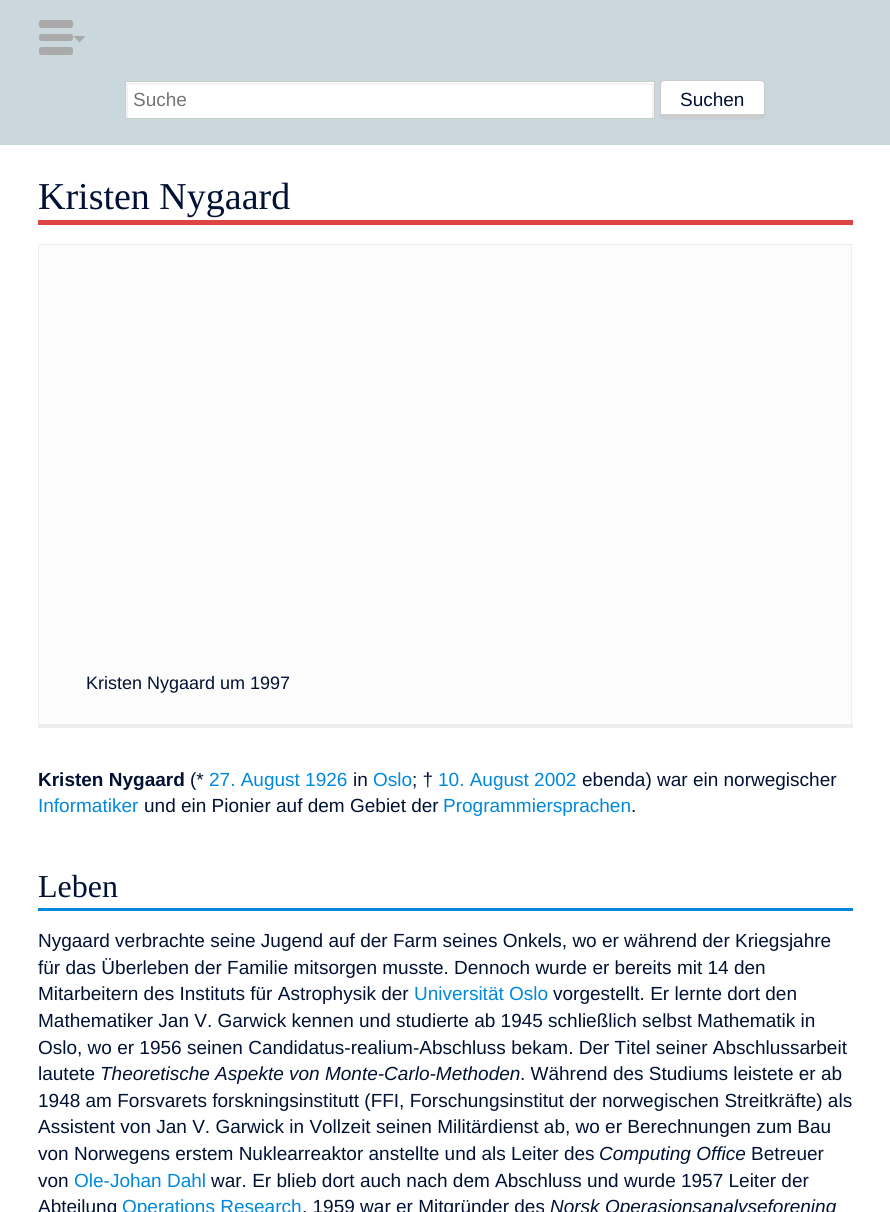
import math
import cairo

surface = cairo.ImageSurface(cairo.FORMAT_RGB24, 890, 1212)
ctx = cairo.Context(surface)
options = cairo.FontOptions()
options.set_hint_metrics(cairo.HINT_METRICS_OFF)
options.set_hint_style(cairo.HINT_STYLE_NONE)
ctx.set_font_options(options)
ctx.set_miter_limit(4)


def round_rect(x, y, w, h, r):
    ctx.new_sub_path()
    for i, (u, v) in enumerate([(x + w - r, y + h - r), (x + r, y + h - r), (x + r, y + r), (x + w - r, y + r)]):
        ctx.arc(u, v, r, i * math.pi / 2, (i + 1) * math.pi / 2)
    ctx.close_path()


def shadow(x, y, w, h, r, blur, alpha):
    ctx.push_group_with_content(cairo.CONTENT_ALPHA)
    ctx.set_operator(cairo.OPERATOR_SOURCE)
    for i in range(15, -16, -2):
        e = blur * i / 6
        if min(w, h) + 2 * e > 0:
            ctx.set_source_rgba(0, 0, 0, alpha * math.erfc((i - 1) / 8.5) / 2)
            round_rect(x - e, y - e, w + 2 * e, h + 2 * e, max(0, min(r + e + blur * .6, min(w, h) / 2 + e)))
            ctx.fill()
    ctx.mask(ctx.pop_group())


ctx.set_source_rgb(0.792, 0.843, 0.867)
ctx.paint()
ctx.set_source_rgb(1, 1, 1)
ctx.rectangle(126, 82, 528, 36)
ctx.fill()
ctx.save()
ctx.rectangle(126, 83, 528, 35)
ctx.clip()
ctx.set_source_rgb(0.949, 0.949, 0.949)
ctx.set_fill_rule(cairo.FILL_RULE_EVEN_ODD)
ctx.new_path()
ctx.move_to(2, -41)
ctx.line_to(778, -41)
ctx.line_to(778, 241)
ctx.line_to(2, 241)
ctx.close_path()
ctx.move_to(128, 85)
ctx.line_to(652, 85)
ctx.line_to(652, 118)
ctx.line_to(128, 118)
ctx.close_path()
ctx.fill()
ctx.restore()
ctx.rectangle(125.5, 81.5, 529, 37)
ctx.set_source_rgb(0.8, 0.8, 0.8)
ctx.set_line_width(1)
ctx.stroke()
ctx.select_font_face("Liberation Sans")
ctx.set_font_size(19)
ctx.set_source_rgb(0.459, 0.459, 0.459)
ctx.move_to(133, 106)
ctx.show_text("Suche")
ctx.set_source_rgb(0, 0, 0)
shadow(660, 81, 105, 38, 4, 1, 0.05)
ctx.set_source_rgb(1, 1, 1)
ctx.new_path()
ctx.move_to(664, 81)
ctx.line_to(761, 81)
ctx.curve_to(763, 81, 764, 82, 764, 84)
ctx.line_to(764, 114)
ctx.line_to(761, 114)
ctx.line_to(661, 114)
ctx.line_to(661, 84)
ctx.curve_to(661, 82, 662, 81, 664, 81)
ctx.close_path()
ctx.fill()
round_rect(660.5, 80.5, 104, 37, 3.5)
ctx.set_source_rgb(0.8, 0.8, 0.8)
ctx.stroke()
ctx.rectangle(663, 114, 100, 3)
ctx.fill()
ctx.set_source_rgb(0, 0.067, 0.2)
ctx.move_to(680, 106)
ctx.show_text("Suchen")
ctx.set_source_rgb(1, 1, 1)
ctx.rectangle(0, 145, 890, 1067)
ctx.fill()
ctx.set_source_rgb(0.667, 0.667, 0.667)
round_rect(39, 47, 34, 8, 2.5)
ctx.fill()
round_rect(39, 34, 34, 7, 2.5)
ctx.fill()
round_rect(39, 20, 34, 8, 2.5)
ctx.fill()
ctx.new_path()
ctx.move_to(85.5, 36)
ctx.line_to(79.5, 42.5)
ctx.line_to(73, 36)
ctx.close_path()
ctx.fill()
ctx.set_source_rgb(0.867, 0.267, 0.267)
ctx.rectangle(38, 220, 815, 5)
ctx.fill()
ctx.select_font_face("Liberation Serif")
ctx.set_font_size(38)
ctx.set_source_rgb(0, 0.067, 0.2)
ctx.move_to(38, 209)
ctx.show_text("Kristen Nygaard")
ctx.set_source_rgb(0.988, 0.988, 0.988)
ctx.rectangle(39, 245, 812, 479)
ctx.fill()
ctx.set_source_rgb(0.933, 0.933, 0.933)
ctx.rectangle(38, 244, 815, 1)
ctx.fill()
ctx.rectangle(851, 244, 1, 484)
ctx.fill()
ctx.rectangle(38, 724, 815, 4)
ctx.fill()
ctx.rectangle(38, 244, 1, 484)
ctx.fill()
ctx.select_font_face("Liberation Sans")
ctx.set_font_size(18)
ctx.set_source_rgb(0, 0.067, 0.2)
ctx.move_to(86, 689)
ctx.show_text("Kristen Nygaard um 1997")
ctx.select_font_face("Liberation Sans", cairo.FONT_SLANT_NORMAL, cairo.FONT_WEIGHT_BOLD)
ctx.set_font_size(19)
ctx.move_to(38, 786)
ctx.show_text("Kristen Nygaard")
ctx.select_font_face("Liberation Sans")
ctx.move_to(190, 786)
ctx.show_text("(*")
ctx.set_source_rgb(0, 0.533, 0.867)
ctx.move_to(209, 786)
ctx.show_text("27. August 1926")
ctx.set_source_rgb(0, 0.067, 0.2)
ctx.move_to(353, 786)
ctx.show_text("in")
ctx.set_source_rgb(0, 0.533, 0.867)
ctx.move_to(373, 786)
ctx.show_text("Oslo")
ctx.set_source_rgb(0, 0.067, 0.2)
ctx.move_to(412, 786)
ctx.show_text("; †")
ctx.set_source_rgb(0, 0.533, 0.867)
ctx.move_to(438, 786)
ctx.show_text("10. August 2002")
ctx.set_source_rgb(0, 0.067, 0.2)
ctx.move_to(582, 786)
ctx.show_text("ebenda) war ein norwegischer")
ctx.set_source_rgb(0, 0.533, 0.867)
ctx.move_to(38, 812)
ctx.show_text("Informatiker")
ctx.set_source_rgb(0, 0.067, 0.2)
ctx.move_to(144, 812)
ctx.show_text("und ein Pionier auf dem Gebiet der")
ctx.set_source_rgb(0, 0.533, 0.867)
ctx.move_to(443, 812)
ctx.show_text("Programmiersprachen")
ctx.set_source_rgb(0, 0.067, 0.2)
ctx.move_to(631, 812)
ctx.show_text(".")
ctx.set_source_rgb(0, 0.533, 0.867)
ctx.rectangle(38, 908, 815, 3)
ctx.fill()
ctx.select_font_face("Liberation Serif")
ctx.set_font_size(32)
ctx.set_source_rgb(0, 0.067, 0.2)
ctx.move_to(38, 897)
ctx.show_text("Leben")
ctx.select_font_face("Liberation Sans")
ctx.set_font_size(19)
ctx.move_to(38, 947)
ctx.show_text("Nygaard verbrachte seine Jugend auf der Farm seines Onkels, wo er während der Kriegsjahre")
ctx.move_to(38, 974)
ctx.show_text("für das Überleben der Familie mitsorgen musste. Dennoch wurde er bereits mit 14 den")
ctx.move_to(38, 1000)
ctx.show_text("Mitarbeitern des Instituts für Astrophysik der")
ctx.set_source_rgb(0, 0.533, 0.867)
ctx.move_to(414, 1000)
ctx.show_text("Universität Oslo")
ctx.set_source_rgb(0, 0.067, 0.2)
ctx.move_to(553, 1000)
ctx.show_text("vorgestellt. Er lernte dort den")
ctx.move_to(38, 1027)
ctx.show_text("Mathematiker Jan V. Garwick kennen und studierte ab 1945 schließlich selbst Mathematik in")
ctx.move_to(38, 1054)
ctx.show_text("Oslo, wo er 1956 seinen Candidatus-realium-Abschluss bekam. Der Titel seiner Abschlussarbeit")
ctx.move_to(38, 1080)
ctx.show_text("lautete")
ctx.select_font_face("Liberation Sans", cairo.FONT_SLANT_ITALIC)
ctx.move_to(100, 1080)
ctx.show_text("Theoretische Aspekte von Monte-Carlo-Methoden")
ctx.select_font_face("Liberation Sans")
ctx.move_to(520, 1080)
ctx.show_text(". Während des Studiums leistete er ab")
ctx.move_to(38, 1107)
ctx.show_text("1948 am Forsvarets forskningsinstitutt (FFI, Forschungsinstitut der norwegischen Streitkräfte) als")
ctx.move_to(38, 1133)
ctx.show_text("Assistent von Jan V. Garwick in Vollzeit seinen Militärdienst ab, wo er Berechnungen zum Bau")
ctx.move_to(38, 1160)
ctx.show_text("von Norwegens erstem Nuklearreaktor anstellte und als Leiter des")
ctx.select_font_face("Liberation Sans", cairo.FONT_SLANT_ITALIC)
ctx.move_to(599, 1160)
ctx.show_text("Computing Office")
ctx.select_font_face("Liberation Sans")
ctx.move_to(751, 1160)
ctx.show_text("Betreuer")
ctx.move_to(38, 1187)
ctx.show_text("von")
ctx.set_source_rgb(0, 0.533, 0.867)
ctx.move_to(74, 1187)
ctx.show_text("Ole-Johan Dahl")
ctx.set_source_rgb(0, 0.067, 0.2)
ctx.move_to(211, 1187)
ctx.show_text("war. Er blieb dort auch nach dem Abschluss und wurde 1957 Leiter der")
ctx.move_to(38, 1213)
ctx.show_text("Abteilung")
ctx.set_source_rgb(0, 0.533, 0.867)
ctx.move_to(122, 1213)
ctx.show_text("Operations Research")
ctx.set_source_rgb(0, 0.067, 0.2)
ctx.move_to(302, 1213)
ctx.show_text(". 1959 war er Mitgründer des")
ctx.select_font_face("Liberation Sans", cairo.FONT_SLANT_ITALIC)
ctx.move_to(550, 1213)
ctx.show_text("Norsk Operasjonsanalyseforening")
surface.write_to_png("page.png")
